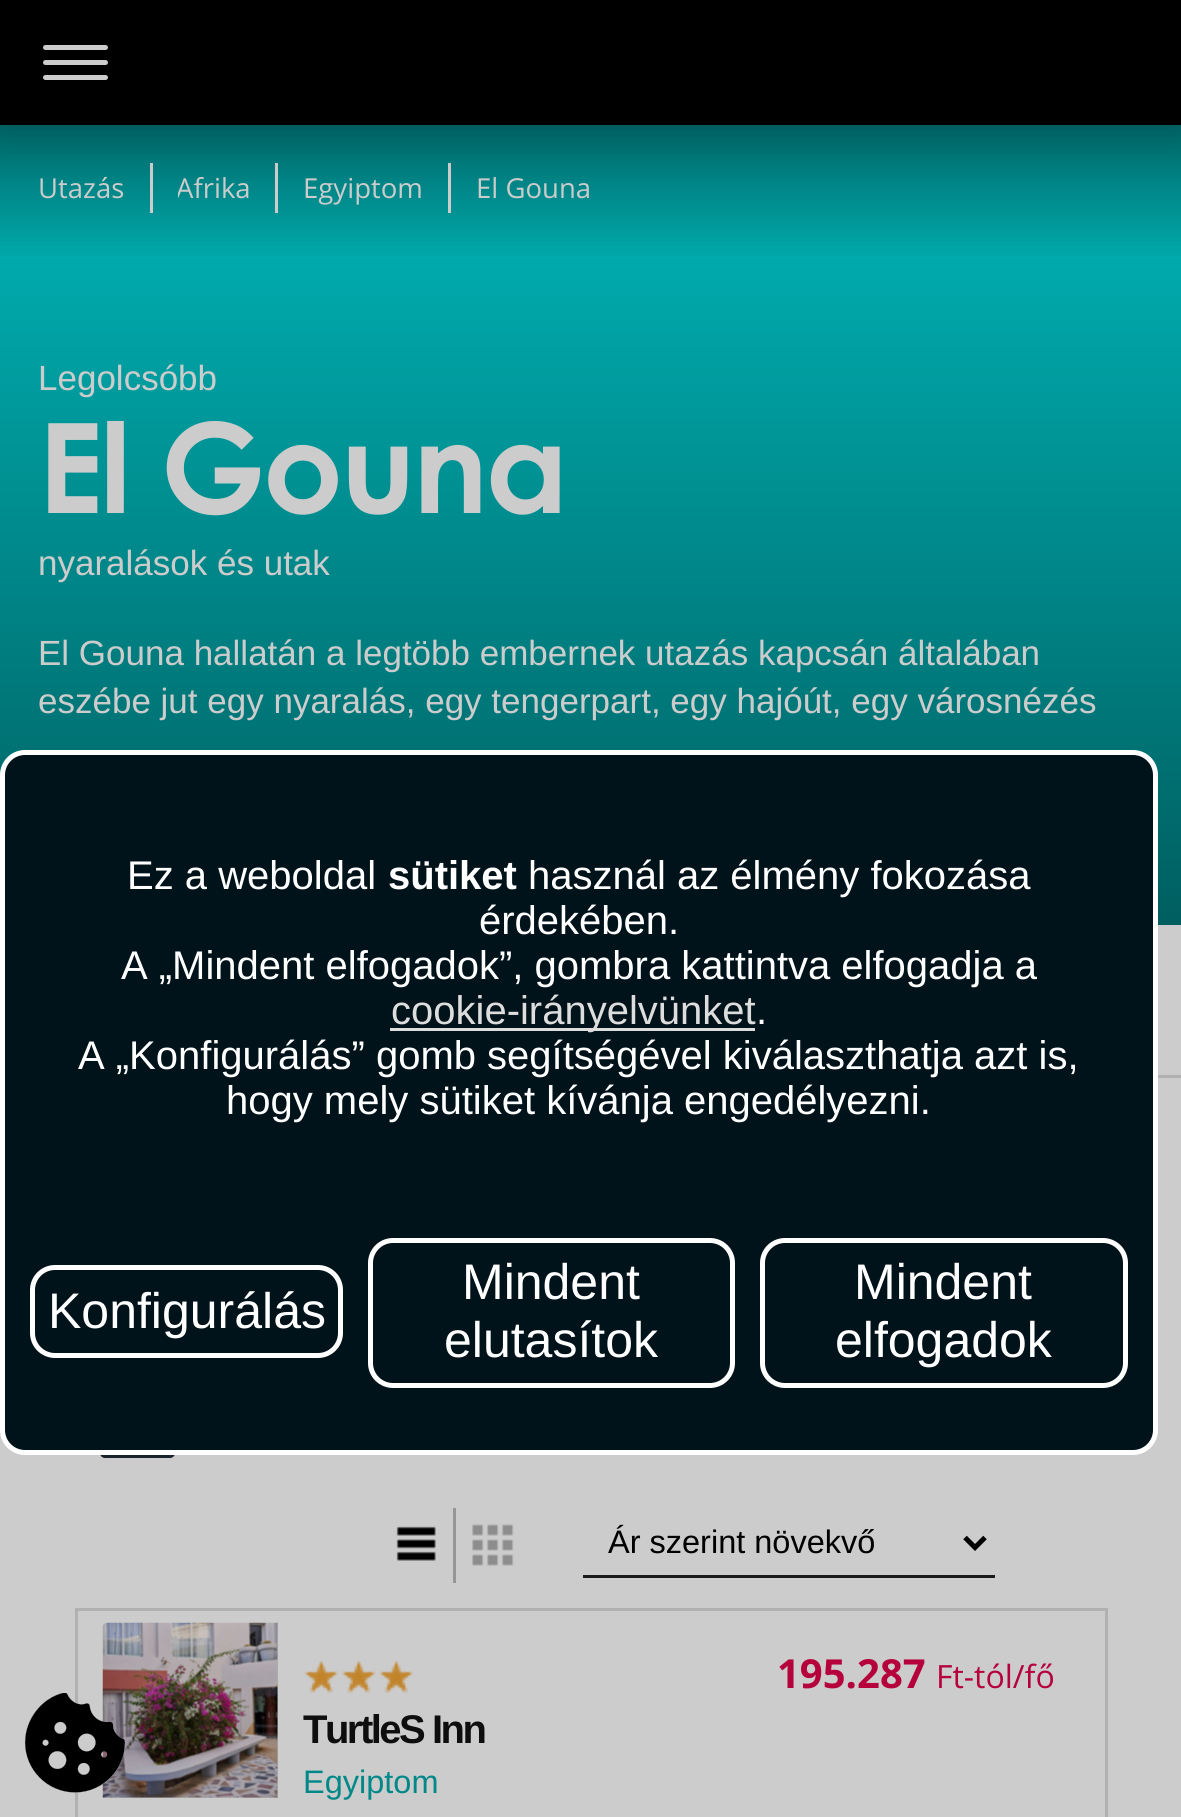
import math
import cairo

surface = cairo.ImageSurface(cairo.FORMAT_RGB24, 1181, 1817)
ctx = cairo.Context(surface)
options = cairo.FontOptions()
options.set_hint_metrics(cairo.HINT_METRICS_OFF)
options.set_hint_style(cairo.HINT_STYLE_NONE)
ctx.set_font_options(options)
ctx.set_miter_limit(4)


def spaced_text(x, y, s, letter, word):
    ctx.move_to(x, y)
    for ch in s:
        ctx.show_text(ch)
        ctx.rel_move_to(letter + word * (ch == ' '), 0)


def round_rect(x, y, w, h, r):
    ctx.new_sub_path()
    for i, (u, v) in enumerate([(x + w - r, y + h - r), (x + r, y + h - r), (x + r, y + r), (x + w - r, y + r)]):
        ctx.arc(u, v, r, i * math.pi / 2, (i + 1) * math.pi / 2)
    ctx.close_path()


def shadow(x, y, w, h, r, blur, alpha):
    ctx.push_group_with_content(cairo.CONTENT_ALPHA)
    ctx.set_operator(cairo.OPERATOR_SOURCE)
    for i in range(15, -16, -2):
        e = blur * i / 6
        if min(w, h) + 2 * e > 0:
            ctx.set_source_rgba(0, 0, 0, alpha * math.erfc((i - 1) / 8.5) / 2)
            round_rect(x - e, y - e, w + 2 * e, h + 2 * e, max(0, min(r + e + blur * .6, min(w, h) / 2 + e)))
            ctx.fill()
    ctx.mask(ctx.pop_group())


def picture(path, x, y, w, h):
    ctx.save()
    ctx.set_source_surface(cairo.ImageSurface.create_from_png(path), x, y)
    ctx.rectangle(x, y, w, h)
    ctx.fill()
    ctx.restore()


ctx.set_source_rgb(0.8, 0.8, 0.8)
ctx.paint()
ctx.set_source_rgb(0, 0.675, 0.682)
ctx.rectangle(0, 125, 1181, 123)
ctx.fill()
gradient = cairo.LinearGradient(591, 247, 591, 925)
gradient.add_color_stop_rgba(0, 0, 0.671, 0.682, 1)
gradient.add_color_stop_rgba(1, 0, 0.369, 0.376, 1)
ctx.set_source(gradient)
ctx.rectangle(0, 248, 1181, 677)
ctx.fill()
gradient = cairo.LinearGradient(591, 125, 591, 263)
gradient.add_color_stop_rgba(0, 0, 0, 0, 0.4)
gradient.add_color_stop_rgba(1, 0, 0, 0, 0)
ctx.set_source(gradient)
ctx.rectangle(0, 125, 1181, 131)
ctx.fill()
ctx.set_source_rgb(0.8, 0.8, 0.8)
ctx.rectangle(150, 163, 3, 50)
ctx.fill()
ctx.rectangle(275, 163, 3, 50)
ctx.fill()
ctx.rectangle(448, 163, 3, 50)
ctx.fill()
ctx.set_source_rgb(0, 0, 0)
shadow(0, 0, 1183, 125, 0, 25, 0.2)
ctx.set_source_rgb(0, 0, 0)
ctx.rectangle(0, 0, 1181, 125)
ctx.fill()
ctx.set_source_rgb(0.8, 0.8, 0.8)
round_rect(43, 60, 65, 5, 2.5)
ctx.fill()
round_rect(43, 45, 65, 5, 2.5)
ctx.fill()
round_rect(43, 75, 65, 5, 2.5)
ctx.fill()
ctx.select_font_face("Open Sans")
ctx.set_font_size(27.5)
ctx.move_to(38, 198)
ctx.show_text("Utazás")
ctx.save()
ctx.rectangle(178, 163, 72, 50)
ctx.clip()
ctx.move_to(176, 198)
ctx.show_text("Afrika")
ctx.restore()
ctx.move_to(303, 198)
ctx.show_text("Egyiptom")
ctx.move_to(476, 198)
ctx.show_text("El Gouna")
ctx.select_font_face("Liberation Sans")
ctx.set_font_size(35)
ctx.move_to(38, 390)
ctx.show_text("Legolcsóbb")
ctx.select_font_face("Century Gothic", cairo.FONT_SLANT_NORMAL, cairo.FONT_WEIGHT_BOLD)
ctx.set_font_size(125)
spaced_text(38, 513, "El Gouna", -2.5, 0)
ctx.select_font_face("Liberation Sans")
ctx.set_font_size(35)
ctx.move_to(38, 575)
ctx.show_text("nyaralások és utak")
ctx.move_to(38, 665)
ctx.show_text("El Gouna hallatán a legtöbb embernek utazás kapcsán általában")
ctx.move_to(38, 713)
ctx.show_text("eszébe jut egy nyaralás, egy tengerpart, egy hajóút, egy városnézés")
ctx.set_source_rgb(0.694, 0.694, 0.694)
ctx.rectangle(1158, 1075, 23, 3)
ctx.fill()
ctx.set_source_rgb(0.102, 0.133, 0.169)
round_rect(100, 1383, 75, 75, 5)
ctx.fill()
picture("img1.png", 396, 1526, 40, 35)
ctx.set_source_rgb(0.588, 0.588, 0.588)
ctx.rectangle(453, 1508, 3, 75)
ctx.fill()
picture("img2.png", 472, 1524, 42, 42)
ctx.set_source_rgb(0.102, 0.102, 0.102)
ctx.rectangle(583, 1575, 412, 3)
ctx.fill()
ctx.new_path()
ctx.move_to(965, 1537.5)
ctx.line_to(975, 1547.5)
ctx.line_to(985, 1537.5)
ctx.set_source_rgb(0, 0, 0)
ctx.set_line_width(5)
ctx.stroke()
ctx.set_font_size(32.5)
ctx.move_to(608, 1553)
ctx.show_text("Ár szerint növekvő")
ctx.set_source_rgb(0.694, 0.694, 0.694)
ctx.rectangle(75, 1608, 1033, 3)
ctx.fill()
ctx.rectangle(1105, 1608, 3, 209)
ctx.fill()
ctx.rectangle(75, 1608, 3, 209)
ctx.fill()
ctx.new_path()
ctx.move_to(108, 1623)
ctx.line_to(278, 1623)
ctx.line_to(278, 1798)
ctx.line_to(103, 1798)
ctx.line_to(103, 1628)
ctx.curve_to(103, 1625, 105, 1623, 108, 1623)
ctx.close_path()
ctx.fill()
picture("img3.png", 102, 1622, 176, 176)
ctx.select_font_face("Open Sans", cairo.FONT_SLANT_NORMAL, cairo.FONT_WEIGHT_BOLD)
ctx.set_font_size(40)
ctx.set_source_rgb(0.71, 0, 0.231)
ctx.move_to(777, 1688)
ctx.show_text("195.287")
ctx.select_font_face("Open Sans")
ctx.set_font_size(32)
ctx.move_to(936, 1688)
ctx.show_text("Ft-tól/fő")
picture("img4.png", 304, 1660, 109, 33)
picture("img5.png", 304, 1660, 109, 33)
ctx.select_font_face("Liberation Sans", cairo.FONT_SLANT_NORMAL, cairo.FONT_WEIGHT_BOLD)
ctx.set_font_size(40)
ctx.set_source_rgb(0.055, 0.055, 0.055)
spaced_text(303, 1743, "TurtleS Inn", -2.5, 0)
ctx.select_font_face("Liberation Sans")
ctx.set_font_size(32.5)
ctx.set_source_rgb(0, 0.533, 0.533)
ctx.move_to(303, 1793)
ctx.show_text("Egyiptom")
ctx.set_source_rgb(0.004, 0.078, 0.102)
round_rect(2.5, 752.5, 1153, 700, 22.5)
ctx.fill_preserve()
ctx.set_source_rgb(1, 1, 1)
ctx.stroke()
ctx.set_font_size(40)
ctx.move_to(127, 889)
ctx.show_text("Ez a weboldal")
ctx.select_font_face("Liberation Sans", cairo.FONT_SLANT_NORMAL, cairo.FONT_WEIGHT_BOLD)
ctx.move_to(388, 889)
ctx.show_text("sütiket")
ctx.select_font_face("Liberation Sans")
ctx.move_to(528, 889)
ctx.show_text("használ az élmény fokozása")
ctx.move_to(479, 934)
ctx.show_text("érdekében.")
ctx.move_to(121, 979)
ctx.show_text("A „Mindent elfogadok”, gombra kattintva elfogadja a")
ctx.set_source_rgb(0.867, 0.867, 0.867)
ctx.rectangle(390, 1028, 365, 3)
ctx.fill()
ctx.move_to(391, 1024)
ctx.show_text("cookie-irányelvünket")
ctx.set_source_rgb(1, 1, 1)
ctx.move_to(756, 1024)
ctx.show_text(".")
ctx.move_to(78, 1069)
ctx.show_text("A „Konfigurálás” gomb segítségével kiválaszthatja azt is,")
ctx.move_to(226, 1114)
ctx.show_text("hogy mely sütiket kívánja engedélyezni.")
round_rect(32.5, 1267.5, 308, 88, 22.5)
ctx.stroke()
ctx.set_font_size(50)
ctx.move_to(48, 1328)
ctx.show_text("Konfigurálás")
round_rect(370.5, 1240.5, 362, 145, 22.5)
ctx.stroke()
ctx.move_to(462, 1299)
ctx.show_text("Mindent")
ctx.move_to(444, 1357)
ctx.show_text("elutasítok")
round_rect(762.5, 1240.5, 363, 145, 22.5)
ctx.stroke()
ctx.move_to(854, 1299)
ctx.show_text("Mindent")
ctx.move_to(835, 1357)
ctx.show_text("elfogadok")
picture("img6.png", 25, 1693, 100, 100)
surface.write_to_png("page.png")
